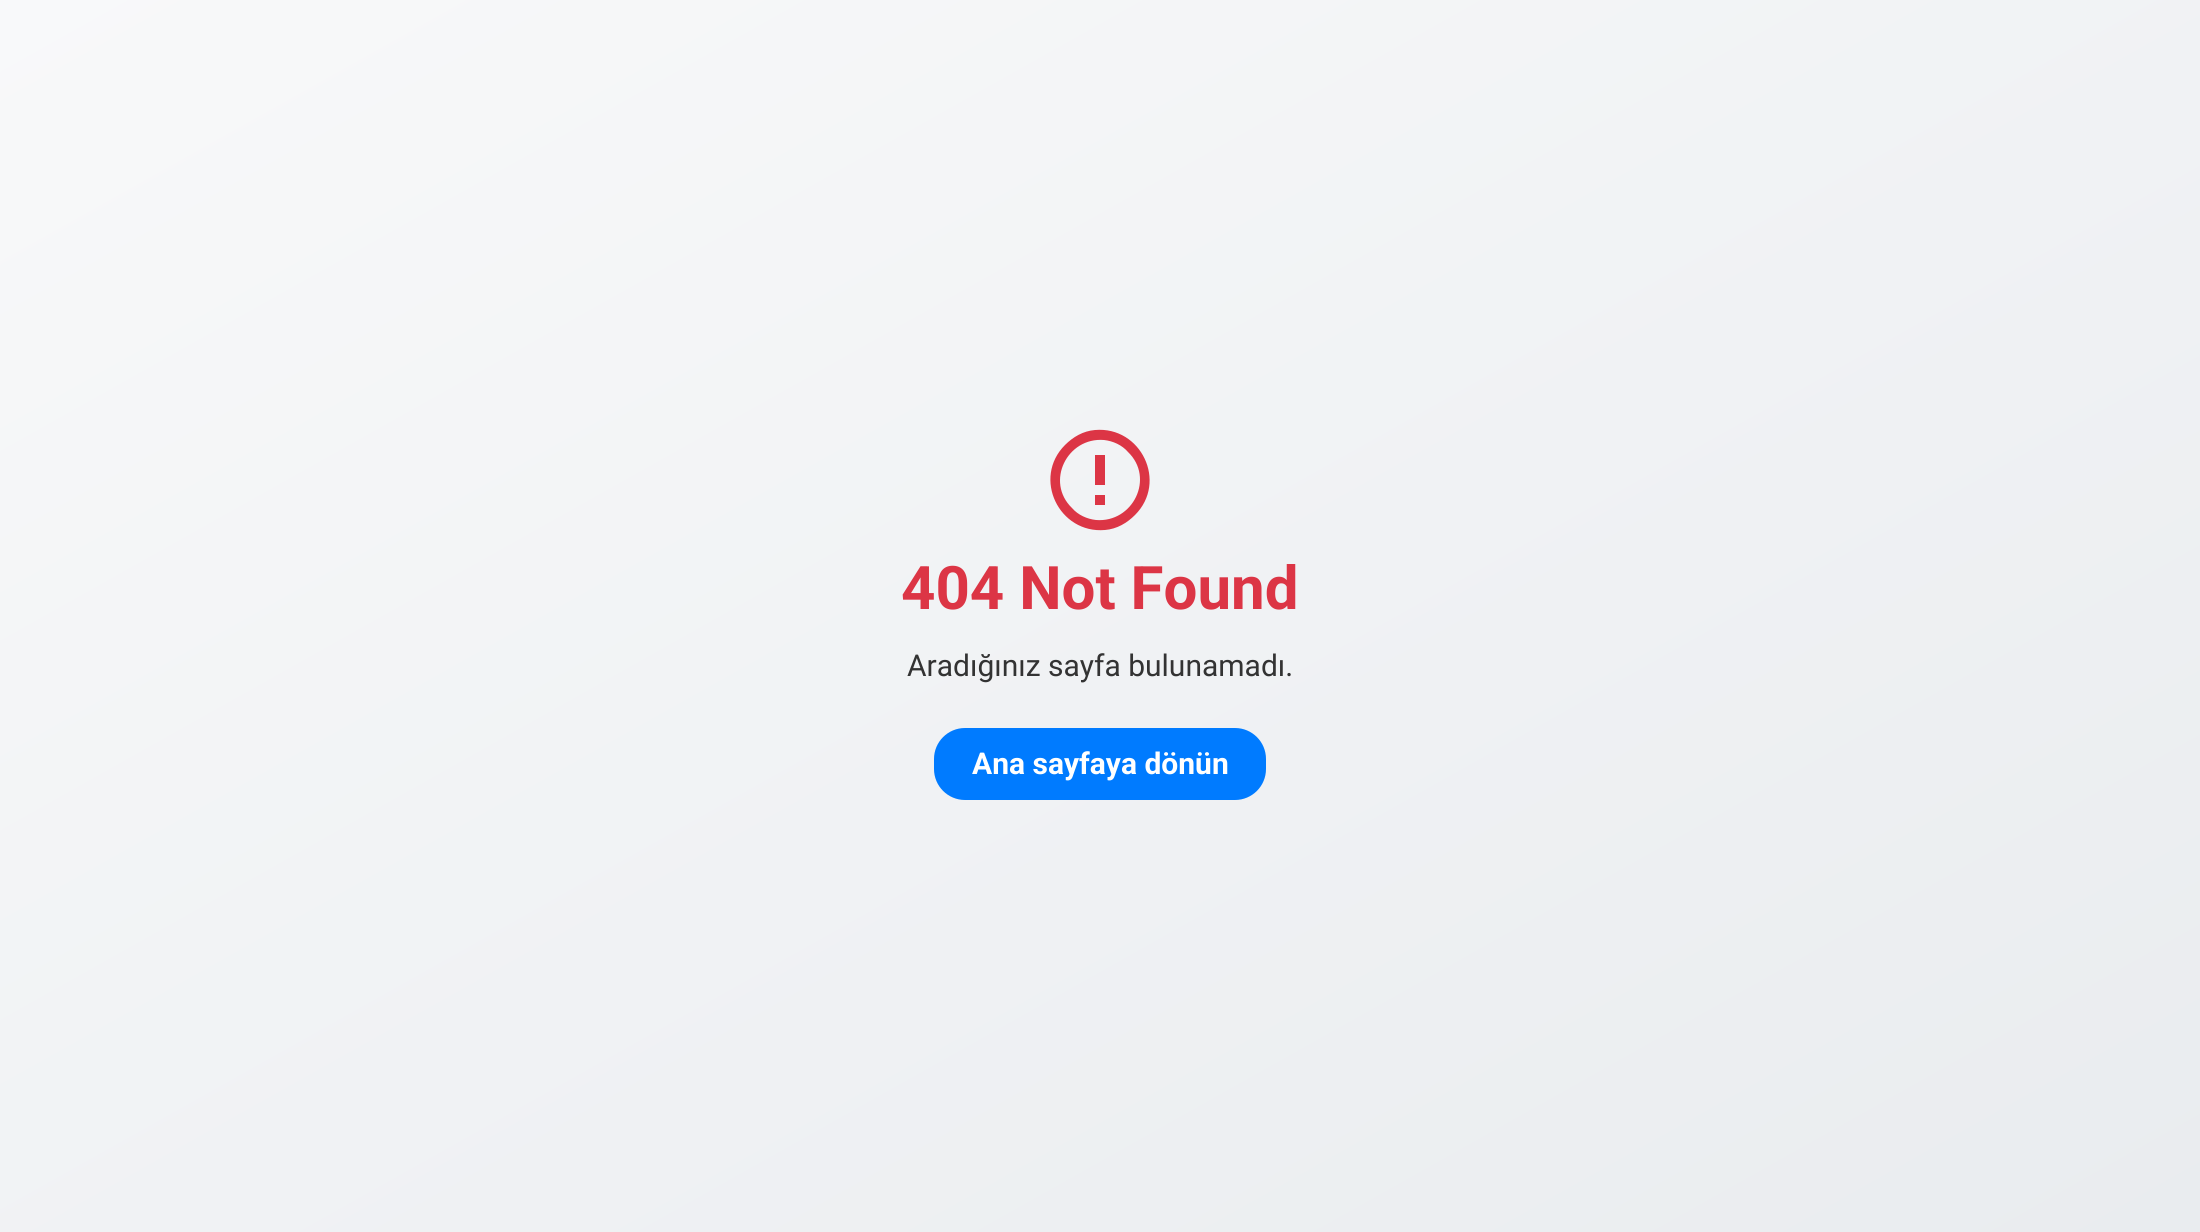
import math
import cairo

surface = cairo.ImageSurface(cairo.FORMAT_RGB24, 2200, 1232)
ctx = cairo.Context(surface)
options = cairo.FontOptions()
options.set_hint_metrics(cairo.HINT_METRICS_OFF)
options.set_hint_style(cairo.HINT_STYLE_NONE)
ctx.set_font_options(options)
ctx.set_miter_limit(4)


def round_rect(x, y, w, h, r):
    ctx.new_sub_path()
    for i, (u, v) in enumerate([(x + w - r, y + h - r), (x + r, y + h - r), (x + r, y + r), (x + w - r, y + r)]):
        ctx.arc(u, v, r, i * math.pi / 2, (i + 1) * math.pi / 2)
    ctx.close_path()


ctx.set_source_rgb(1, 1, 1)
ctx.paint()
gradient = cairo.LinearGradient(574, -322, 1626, 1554)
gradient.add_color_stop_rgba(0, 0.973, 0.976, 0.98, 1)
gradient.add_color_stop_rgba(1, 0.914, 0.925, 0.937, 1)
ctx.set_source(gradient)
ctx.rectangle(0, 0, 2200, 1232)
ctx.fill()
ctx.set_source_rgb(0.863, 0.208, 0.271)
ctx.new_path()
ctx.move_to(1072, 508)
ctx.curve_to(1078, 515, 1087, 519, 1096, 520)
ctx.curve_to(1133, 523, 1155, 478, 1128, 452)
ctx.curve_to(1122, 445, 1113, 441, 1104, 440)
ctx.curve_to(1067, 437, 1045, 482, 1072, 508)
ctx.close_path()
ctx.move_to(1065, 445)
ctx.curve_to(1073, 437, 1083, 431, 1095, 430)
ctx.curve_to(1141, 426, 1168, 482, 1135, 515)
ctx.curve_to(1127, 523, 1117, 529, 1105, 530)
ctx.curve_to(1059, 534, 1032, 478, 1065, 445)
ctx.close_path()
ctx.move_to(1095, 455)
ctx.line_to(1105, 455)
ctx.line_to(1105, 485)
ctx.line_to(1095, 485)
ctx.close_path()
ctx.move_to(1095, 495)
ctx.line_to(1105, 495)
ctx.line_to(1105, 505)
ctx.line_to(1095, 505)
ctx.close_path()
ctx.fill()
ctx.select_font_face("Roboto", cairo.FONT_SLANT_NORMAL, cairo.FONT_WEIGHT_BOLD)
ctx.set_font_size(60)
ctx.move_to(901, 609)
ctx.show_text("404 Not Found")
ctx.select_font_face("Roboto")
ctx.set_font_size(30)
ctx.set_source_rgb(0.2, 0.2, 0.2)
ctx.move_to(907, 676)
ctx.show_text("Aradığınız sayfa bulunamadı.")
ctx.set_source_rgb(0, 0.482, 1)
round_rect(934, 728, 332, 72, 31)
ctx.fill()
ctx.select_font_face("Roboto", cairo.FONT_SLANT_NORMAL, cairo.FONT_WEIGHT_BOLD)
ctx.set_source_rgb(1, 1, 1)
ctx.move_to(972, 774)
ctx.show_text("Ana sayfaya dönün")
surface.write_to_png("page.png")
